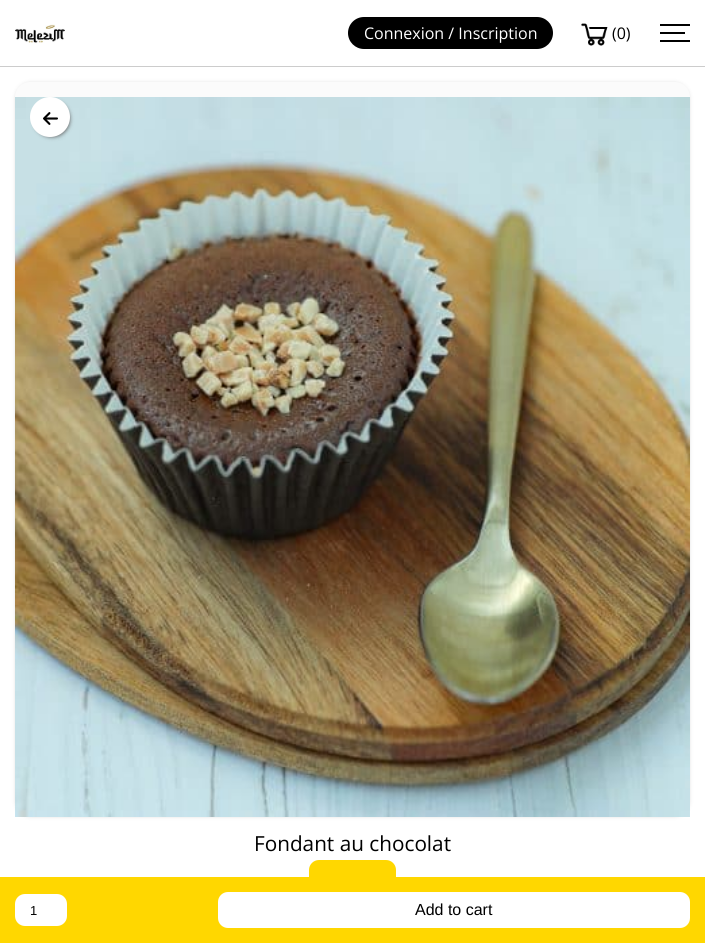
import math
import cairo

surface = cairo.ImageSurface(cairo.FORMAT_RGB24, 705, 943)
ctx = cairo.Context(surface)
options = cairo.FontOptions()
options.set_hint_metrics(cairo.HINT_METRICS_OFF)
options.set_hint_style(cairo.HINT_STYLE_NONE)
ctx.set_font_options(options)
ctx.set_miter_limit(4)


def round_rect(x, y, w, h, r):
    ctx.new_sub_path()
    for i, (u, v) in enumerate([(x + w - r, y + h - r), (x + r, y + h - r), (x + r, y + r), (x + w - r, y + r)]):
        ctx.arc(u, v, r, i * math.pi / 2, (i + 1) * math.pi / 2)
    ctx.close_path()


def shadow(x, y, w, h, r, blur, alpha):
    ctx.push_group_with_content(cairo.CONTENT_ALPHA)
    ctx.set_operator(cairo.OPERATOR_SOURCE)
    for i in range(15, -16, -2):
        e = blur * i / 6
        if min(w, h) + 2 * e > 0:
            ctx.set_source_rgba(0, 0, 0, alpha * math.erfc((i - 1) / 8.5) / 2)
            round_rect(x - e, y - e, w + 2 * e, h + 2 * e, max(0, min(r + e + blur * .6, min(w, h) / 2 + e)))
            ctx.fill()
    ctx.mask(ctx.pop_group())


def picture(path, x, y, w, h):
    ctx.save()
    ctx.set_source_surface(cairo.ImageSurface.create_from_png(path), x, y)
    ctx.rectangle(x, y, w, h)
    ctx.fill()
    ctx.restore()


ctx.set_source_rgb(1, 1, 1)
ctx.paint()
ctx.set_source_rgb(0.8, 0.8, 0.8)
ctx.rectangle(0, 66, 705, 1)
ctx.fill()
picture("img1.png", 15, 24, 50, 19)
ctx.set_source_rgb(0, 0, 0)
round_rect(348, 17, 205, 32, 16)
ctx.fill()
ctx.select_font_face("Open Sans")
ctx.set_font_size(16)
ctx.set_source_rgb(1, 1, 1)
ctx.move_to(364, 39)
ctx.show_text("Connexion / Inscription")
picture("img2.png", 581, 23, 27, 23)
ctx.set_source_rgb(0, 0, 0)
ctx.move_to(612, 39)
ctx.show_text("(0)")
ctx.rectangle(660, 32, 25, 2)
ctx.fill()
ctx.rectangle(660, 24, 30, 2)
ctx.fill()
ctx.rectangle(660, 40, 30, 2)
ctx.fill()
ctx.set_source_rgb(0.4, 0.4, 0.4)
shadow(19, 86, 667, 727, 11, 3, 1)
ctx.set_source_rgb(0.984, 0.984, 0.984)
round_rect(15, 82, 675, 735, 15)
ctx.fill()
picture("img3.png", 15, 97, 675, 720)
ctx.set_source_rgb(0.4, 0.4, 0.4)
shadow(34, 101, 36, 36, 18, 2, 1)
ctx.set_source_rgb(1, 1, 1)
ctx.arc(50, 117, 20, 0, 2 * math.pi)
ctx.fill()
picture("img4.png", 43, 112, 15, 13)
ctx.set_font_size(20.75)
ctx.set_source_rgb(0, 0, 0)
ctx.move_to(254, 851)
ctx.show_text("Fondant au chocolat")
ctx.set_source_rgb(1, 0.843, 0)
ctx.new_path()
ctx.move_to(319, 860)
ctx.line_to(369, 860)
ctx.line_to(369, 891)
ctx.line_to(319, 891)
ctx.curve_to(313.5, 891, 309, 886.5, 309, 881)
ctx.line_to(309, 870)
ctx.curve_to(309, 864.5, 313.5, 860, 319, 860)
ctx.close_path()
ctx.fill()
ctx.new_path()
ctx.move_to(369, 860)
ctx.line_to(386, 860)
ctx.curve_to(391.5, 860, 396, 864.5, 396, 870)
ctx.line_to(396, 881)
ctx.curve_to(396, 886.5, 391.5, 891, 386, 891)
ctx.line_to(369, 891)
ctx.close_path()
ctx.fill()
ctx.rectangle(0, 877, 705, 66)
ctx.fill()
ctx.set_source_rgb(1, 1, 1)
round_rect(15, 894, 52, 32, 10)
ctx.fill()
ctx.select_font_face("Liberation Sans")
ctx.set_font_size(13)
ctx.set_source_rgb(0, 0, 0)
ctx.move_to(30, 915)
ctx.show_text("1")
ctx.set_source_rgb(1, 1, 1)
round_rect(218, 892, 472, 36, 10)
ctx.fill()
ctx.set_font_size(16)
ctx.set_source_rgb(0, 0, 0)
ctx.move_to(415, 915)
ctx.show_text("Add to cart")
surface.write_to_png("page.png")
